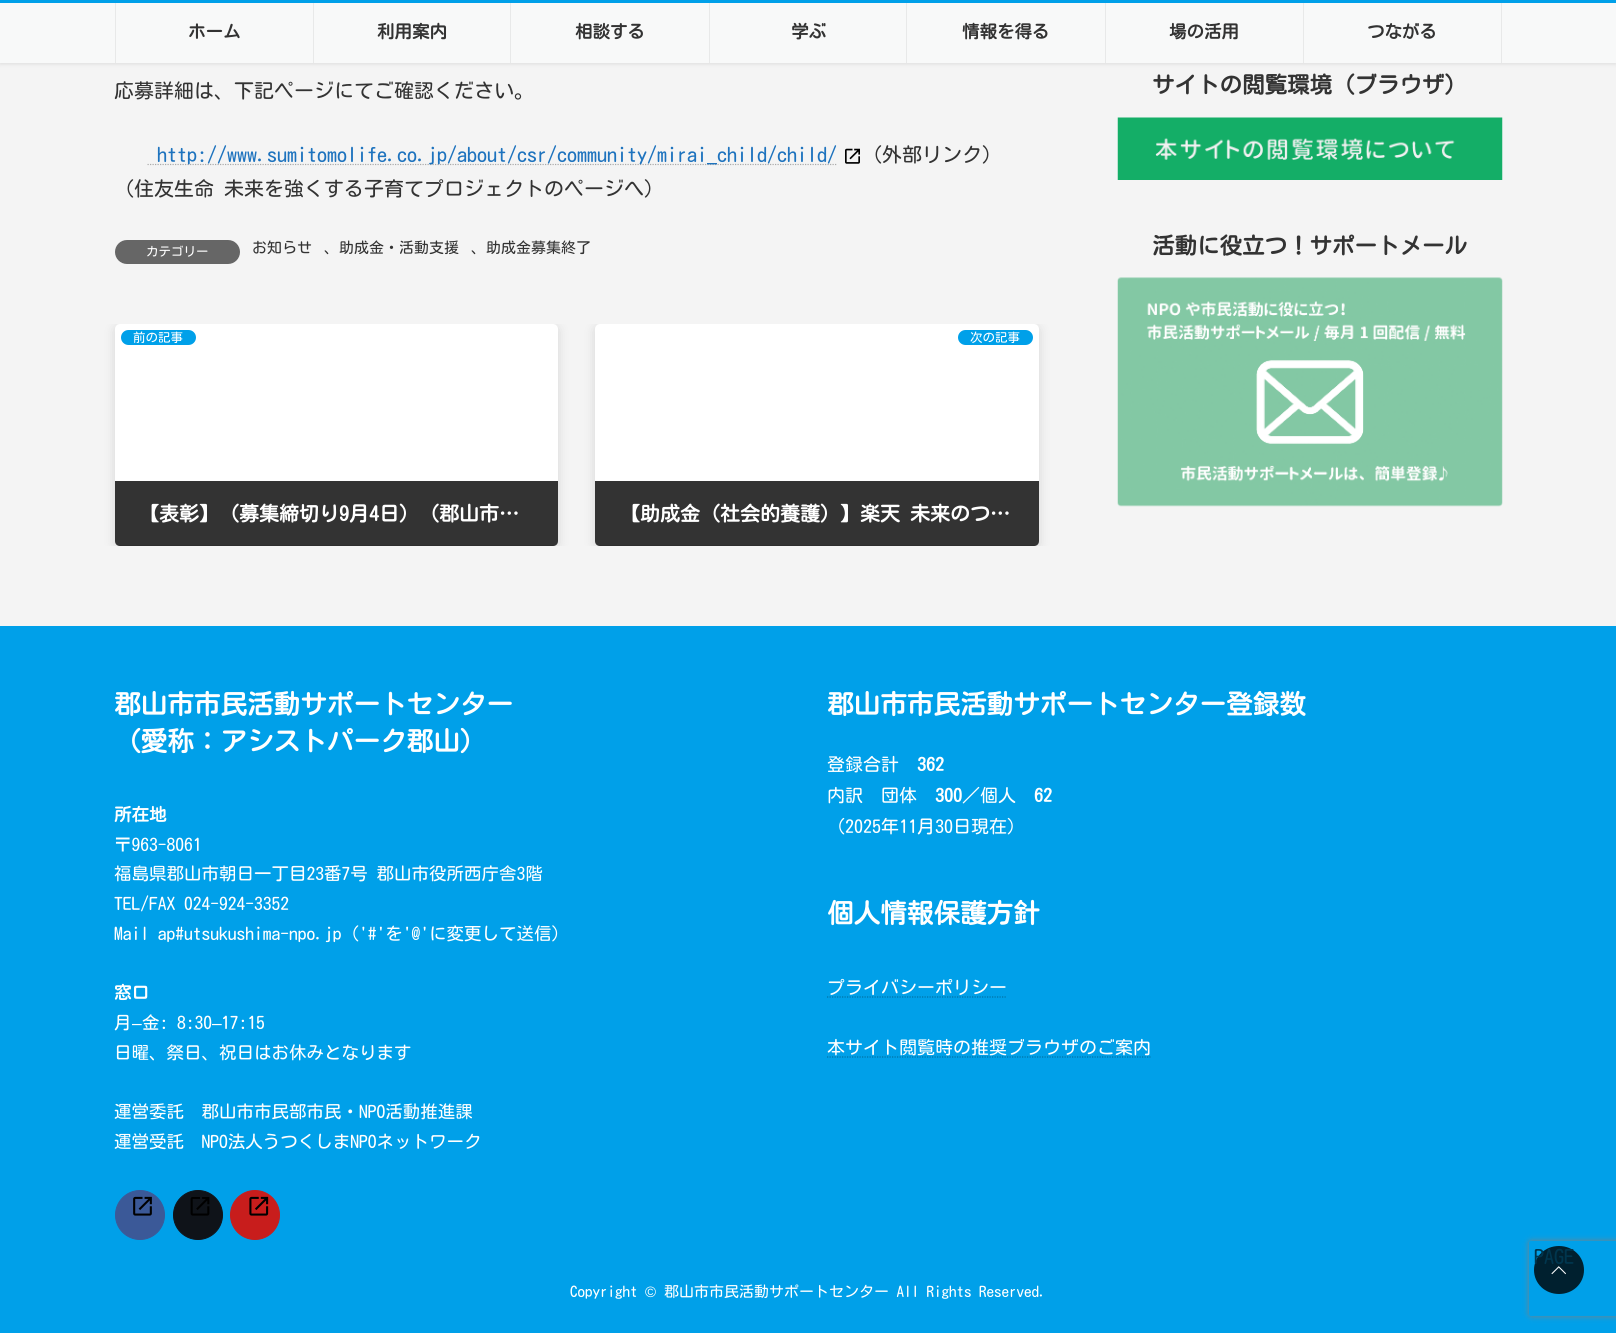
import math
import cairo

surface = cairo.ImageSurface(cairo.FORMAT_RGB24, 1616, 1333)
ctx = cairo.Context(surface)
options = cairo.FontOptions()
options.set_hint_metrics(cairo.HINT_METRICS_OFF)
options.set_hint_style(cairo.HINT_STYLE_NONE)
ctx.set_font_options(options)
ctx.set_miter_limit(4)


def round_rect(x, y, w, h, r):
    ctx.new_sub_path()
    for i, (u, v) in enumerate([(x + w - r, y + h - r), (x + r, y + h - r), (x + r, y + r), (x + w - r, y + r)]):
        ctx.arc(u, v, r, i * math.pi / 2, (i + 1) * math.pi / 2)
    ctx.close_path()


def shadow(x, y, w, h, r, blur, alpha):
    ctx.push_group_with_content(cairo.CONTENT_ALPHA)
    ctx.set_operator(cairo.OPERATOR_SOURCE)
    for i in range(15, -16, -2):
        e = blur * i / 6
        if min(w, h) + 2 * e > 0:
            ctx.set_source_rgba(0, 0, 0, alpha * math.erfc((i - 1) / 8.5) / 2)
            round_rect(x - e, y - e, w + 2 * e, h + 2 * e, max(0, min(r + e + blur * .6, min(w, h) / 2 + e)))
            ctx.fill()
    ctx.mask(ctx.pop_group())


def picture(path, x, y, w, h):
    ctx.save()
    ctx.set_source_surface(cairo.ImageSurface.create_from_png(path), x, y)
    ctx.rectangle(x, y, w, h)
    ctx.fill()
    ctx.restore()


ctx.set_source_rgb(0.957, 0.957, 0.957)
ctx.paint()
ctx.set_source_rgb(0, 0, 0)
shadow(0, 1, 1616, 63, 0, 2, 0.1)
ctx.set_source_rgb(0.969, 0.973, 0.973)
ctx.rectangle(0, 3, 1616, 60)
ctx.fill()
ctx.set_source_rgb(0, 0.627, 0.914)
ctx.rectangle(0, 0, 1616, 3)
ctx.fill()
ctx.set_source_rgb(0.91, 0.914, 0.914)
ctx.rectangle(313, 3, 1, 60)
ctx.fill()
ctx.rectangle(115, 3, 1, 60)
ctx.fill()
ctx.select_font_face("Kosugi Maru", cairo.FONT_SLANT_NORMAL, cairo.FONT_WEIGHT_BOLD)
ctx.set_font_size(17.5)
ctx.set_source_rgb(0.2, 0.2, 0.2)
ctx.move_to(188, 38)
ctx.show_text("ホーム")
ctx.set_source_rgb(0.91, 0.914, 0.914)
ctx.rectangle(510, 3, 1, 60)
ctx.fill()
ctx.set_source_rgb(0.2, 0.2, 0.2)
ctx.move_to(377, 38)
ctx.show_text("利用案内")
ctx.set_source_rgb(0.91, 0.914, 0.914)
ctx.rectangle(709, 3, 1, 60)
ctx.fill()
ctx.set_source_rgb(0.2, 0.2, 0.2)
ctx.move_to(575, 38)
ctx.show_text("相談する")
ctx.set_source_rgb(0.91, 0.914, 0.914)
ctx.rectangle(906, 3, 1, 60)
ctx.fill()
ctx.set_source_rgb(0.2, 0.2, 0.2)
ctx.move_to(791, 38)
ctx.show_text("学ぶ")
ctx.set_source_rgb(0.91, 0.914, 0.914)
ctx.rectangle(1105, 3, 1, 60)
ctx.fill()
ctx.set_source_rgb(0.2, 0.2, 0.2)
ctx.move_to(962, 38)
ctx.show_text("情報を得る")
ctx.set_source_rgb(0.91, 0.914, 0.914)
ctx.rectangle(1303, 3, 1, 60)
ctx.fill()
ctx.set_source_rgb(0.2, 0.2, 0.2)
ctx.move_to(1169, 38)
ctx.show_text("場の活用")
ctx.set_source_rgb(0.91, 0.914, 0.914)
ctx.rectangle(1501, 3, 1, 60)
ctx.fill()
ctx.set_source_rgb(0.2, 0.2, 0.2)
ctx.move_to(1367, 38)
ctx.show_text("つながる")
ctx.select_font_face("Kosugi Maru")
ctx.set_font_size(20)
ctx.move_to(114, 98)
ctx.show_text("応募詳細は、下記ページにてご確認ください。")
ctx.new_path()
ctx.move_to(147.5, 164.5)
ctx.line_to(837.5, 164.5)
ctx.set_source_rgb(0.671, 0.671, 0.671)
ctx.set_line_width(1.2)
ctx.set_dash([1.25, 1.25])
ctx.stroke()
ctx.set_source_rgb(0.118, 0.451, 0.745)
ctx.move_to(157, 162)
ctx.show_text("http://www.sumitomolife.co.jp/about/csr/community/mirai_child/child/")
picture("img1.png", 845, 148, 15, 16)
ctx.set_source_rgb(0.2, 0.2, 0.2)
ctx.move_to(862, 162)
ctx.show_text("（外部リンク）")
ctx.move_to(114, 196)
ctx.show_text("（住友生命 未来を強くする子育てプロジェクトのページへ）")
ctx.set_source_rgb(0.4, 0.4, 0.4)
round_rect(115, 240, 125, 24, 12)
ctx.fill()
ctx.set_font_size(12.5)
ctx.set_source_rgb(1, 1, 1)
ctx.move_to(146, 256)
ctx.show_text("カテゴリー")
ctx.set_font_size(15)
ctx.set_source_rgb(0.2, 0.2, 0.2)
ctx.move_to(252, 253)
ctx.show_text("お知らせ")
ctx.move_to(324, 253)
ctx.show_text("、助成金・活動支援")
ctx.move_to(471, 253)
ctx.show_text("、助成金募集終了")
ctx.save()
ctx.rectangle(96, 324, 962, 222)
ctx.clip()
ctx.set_source_rgb(0, 0, 0)
shadow(115, 326, 443, 223, 5, 6, 0.12)
ctx.restore()
ctx.set_source_rgb(1, 1, 1)
round_rect(115, 324, 443, 222, 5)
ctx.fill()
ctx.save()
round_rect(115, 324, 443, 222, 5)
ctx.clip()
ctx.set_source_rgb(0.898, 0.898, 0.898)
ctx.rectangle(115, 545, 443, 1)
ctx.fill()
ctx.restore()
ctx.set_source_rgb(0, 0.627, 0.914)
round_rect(121, 330, 75, 15, 7.5)
ctx.fill()
ctx.set_font_size(12.5)
ctx.set_source_rgb(1, 1, 1)
ctx.move_to(133, 342)
ctx.show_text("前の記事")
ctx.set_source_rgba(0, 0, 0, 0.8)
ctx.new_path()
ctx.move_to(115, 481)
ctx.line_to(558, 481)
ctx.line_to(558, 541)
ctx.curve_to(558, 544, 556, 546, 553, 546)
ctx.line_to(120, 546)
ctx.curve_to(117, 546, 115, 544, 115, 541)
ctx.close_path()
ctx.fill()
ctx.select_font_face("Kosugi Maru", cairo.FONT_SLANT_NORMAL, cairo.FONT_WEIGHT_BOLD)
ctx.set_font_size(20)
ctx.set_source_rgb(1, 1, 1)
ctx.move_to(139, 521)
ctx.show_text("【表彰】（募集締切り9月4日）（郡山市…")
ctx.save()
ctx.rectangle(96, 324, 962, 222)
ctx.clip()
ctx.set_source_rgb(0, 0, 0)
shadow(595, 326, 444, 223, 5, 6, 0.12)
ctx.restore()
round_rect(595, 324, 444, 222, 5)
ctx.fill()
ctx.save()
round_rect(595, 324, 444, 222, 5)
ctx.clip()
ctx.set_source_rgb(0.898, 0.898, 0.898)
ctx.rectangle(595, 545, 444, 1)
ctx.fill()
ctx.restore()
ctx.set_source_rgb(0, 0.627, 0.914)
round_rect(958, 330, 75, 15, 7.5)
ctx.fill()
ctx.select_font_face("Kosugi Maru")
ctx.set_font_size(12.5)
ctx.set_source_rgb(1, 1, 1)
ctx.move_to(970, 342)
ctx.show_text("次の記事")
ctx.set_source_rgba(0, 0, 0, 0.8)
ctx.new_path()
ctx.move_to(595, 481)
ctx.line_to(1039, 481)
ctx.line_to(1039, 541)
ctx.curve_to(1039, 544, 1037, 546, 1034, 546)
ctx.line_to(600, 546)
ctx.curve_to(597, 546, 595, 544, 595, 541)
ctx.close_path()
ctx.fill()
ctx.select_font_face("Kosugi Maru", cairo.FONT_SLANT_NORMAL, cairo.FONT_WEIGHT_BOLD)
ctx.set_font_size(20)
ctx.set_source_rgb(1, 1, 1)
ctx.move_to(620, 521)
ctx.show_text("【助成金（社会的養護）】楽天 未来のつ…")
ctx.set_font_size(22.5)
ctx.set_source_rgb(0.2, 0.2, 0.2)
ctx.move_to(1152, 93)
ctx.show_text("サイトの閲覧環境（ブラウザ）")
picture("img2.png", 1117, 117, 386, 63)
ctx.move_to(1152, 254)
ctx.show_text("活動に役立つ！サポートメール")
picture("img3.png", 1117, 277, 386, 230)
ctx.set_source_rgb(0, 0.627, 0.914)
ctx.rectangle(0, 626, 1616, 707)
ctx.fill()
ctx.set_font_size(26.6)
ctx.set_source_rgb(1, 1, 1)
ctx.move_to(114, 714)
ctx.show_text("郡山市市民活動サポートセンター")
ctx.move_to(114, 751)
ctx.show_text("（愛称：アシストパーク郡山）")
ctx.set_font_size(17.5)
ctx.move_to(114, 821)
ctx.show_text("所在地")
ctx.select_font_face("Kosugi Maru")
ctx.move_to(114, 851)
ctx.show_text("〒963-8061")
ctx.move_to(114, 880)
ctx.show_text("福島県郡山市朝日一丁目23番7号 郡山市役所西庁舎3階")
ctx.move_to(114, 910)
ctx.show_text("TEL/FAX 024-924-3352")
ctx.move_to(114, 940)
ctx.show_text("Mail ap#utsukushima-npo.jp（'#'を'@'に変更して送信）")
ctx.select_font_face("Kosugi Maru", cairo.FONT_SLANT_NORMAL, cairo.FONT_WEIGHT_BOLD)
ctx.move_to(114, 999)
ctx.show_text("窓口")
ctx.select_font_face("Kosugi Maru")
ctx.move_to(114, 1029)
ctx.show_text("月")
ctx.select_font_face("Liberation Sans")
ctx.move_to(132, 1029)
ctx.show_text("–")
ctx.select_font_face("Kosugi Maru")
ctx.move_to(142, 1029)
ctx.show_text("金: 8:30")
ctx.select_font_face("Liberation Sans")
ctx.move_to(212, 1029)
ctx.show_text("–")
ctx.select_font_face("Kosugi Maru")
ctx.move_to(221, 1029)
ctx.show_text("17:15")
ctx.move_to(114, 1059)
ctx.show_text("日曜、祭日、祝日はお休みとなります")
ctx.move_to(114, 1118)
ctx.show_text("運営委託　郡山市市民部市民・NPO活動推進課")
ctx.move_to(114, 1148)
ctx.show_text("運営受託　NPO法人うつくしまNPOネットワーク")
ctx.set_source_rgb(0.231, 0.349, 0.596)
ctx.new_path()
ctx.arc(140, 1215, 24.5, 0, 2 * math.pi)
ctx.fill_preserve()
ctx.set_line_width(1)
ctx.set_dash([])
ctx.stroke()
picture("img4.png", 133, 1196, 19, 20)
ctx.set_source_rgb(0.059, 0.078, 0.098)
ctx.arc(198, 1215, 24.5, 0, 2 * math.pi)
ctx.fill_preserve()
ctx.stroke()
picture("img5.png", 190, 1197, 20, 19)
ctx.set_source_rgb(0.784, 0.114, 0.11)
ctx.arc(255, 1215, 24.5, 0, 2 * math.pi)
ctx.fill_preserve()
ctx.stroke()
picture("img6.png", 249, 1196, 20, 20)
ctx.select_font_face("Kosugi Maru", cairo.FONT_SLANT_NORMAL, cairo.FONT_WEIGHT_BOLD)
ctx.set_font_size(26.6)
ctx.set_source_rgb(1, 1, 1)
ctx.move_to(827, 714)
ctx.show_text("郡山市市民活動サポートセンター登録数")
ctx.select_font_face("Kosugi Maru")
ctx.set_font_size(18)
ctx.move_to(827, 771)
ctx.show_text("登録合計")
ctx.select_font_face("Kosugi Maru", cairo.FONT_SLANT_NORMAL, cairo.FONT_WEIGHT_BOLD)
ctx.move_to(917, 771)
ctx.show_text("362")
ctx.select_font_face("Kosugi Maru")
ctx.move_to(827, 802)
ctx.show_text("内訳　団体")
ctx.select_font_face("Kosugi Maru", cairo.FONT_SLANT_NORMAL, cairo.FONT_WEIGHT_BOLD)
ctx.move_to(935, 802)
ctx.show_text("300")
ctx.select_font_face("Kosugi Maru")
ctx.move_to(962, 802)
ctx.show_text("／個人")
ctx.select_font_face("Kosugi Maru", cairo.FONT_SLANT_NORMAL, cairo.FONT_WEIGHT_BOLD)
ctx.move_to(1034, 802)
ctx.show_text("62")
ctx.select_font_face("Kosugi Maru")
ctx.move_to(827, 833)
ctx.show_text("（2025年11月30日現在）")
ctx.select_font_face("Kosugi Maru", cairo.FONT_SLANT_NORMAL, cairo.FONT_WEIGHT_BOLD)
ctx.set_font_size(26.6)
ctx.move_to(827, 923)
ctx.show_text("個人情報保護方針")
ctx.select_font_face("Kosugi Maru")
ctx.set_font_size(18)
ctx.move_to(827, 994)
ctx.show_text("プライバシーポリシー")
ctx.new_path()
ctx.move_to(827, 997)
ctx.line_to(1007, 997)
ctx.set_source_rgb(0, 0.439, 0.639)
ctx.set_line_width(1.2)
ctx.set_dash([1.25, 1.25])
ctx.stroke()
ctx.set_source_rgb(1, 1, 1)
ctx.move_to(827, 1054)
ctx.show_text("本サイト閲覧時の推奨ブラウザのご案内")
ctx.new_path()
ctx.move_to(827, 1057)
ctx.line_to(1150.5, 1057)
ctx.set_source_rgb(0, 0.439, 0.639)
ctx.stroke()
ctx.set_font_size(15)
ctx.set_source_rgb(1, 1, 1)
ctx.move_to(570, 1297)
ctx.show_text("Copyright")
ctx.select_font_face("Liberation Sans")
ctx.move_to(645, 1297)
ctx.show_text("©")
ctx.select_font_face("Kosugi Maru")
ctx.move_to(664, 1297)
ctx.show_text("郡山市市民活動サポートセンター All Rights Reserved.")
ctx.save()
ctx.set_fill_rule(cairo.FILL_RULE_EVEN_ODD)
ctx.new_path()
ctx.move_to(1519, 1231)
ctx.line_to(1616, 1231)
ctx.line_to(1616, 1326)
ctx.line_to(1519, 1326)
ctx.close_path()
ctx.move_to(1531.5, 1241)
ctx.line_to(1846.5, 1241)
ctx.curve_to(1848, 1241, 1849, 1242, 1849, 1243.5)
ctx.line_to(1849, 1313.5)
ctx.curve_to(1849, 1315, 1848, 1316, 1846.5, 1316)
ctx.line_to(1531.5, 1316)
ctx.curve_to(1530, 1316, 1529, 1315, 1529, 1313.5)
ctx.line_to(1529, 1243.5)
ctx.curve_to(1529, 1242, 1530, 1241, 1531.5, 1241)
ctx.close_path()
ctx.clip()
ctx.set_source_rgb(0.502, 0.502, 0.502)
shadow(1529, 1241, 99, 75, 2.5, 3, 1)
ctx.restore()
ctx.set_source_rgb(0, 0.125, 0.184)
ctx.new_path()
ctx.move_to(1559, 1246)
ctx.curve_to(1573, 1246, 1584, 1256.5, 1584, 1270)
ctx.curve_to(1584, 1283.5, 1573, 1294, 1559, 1294)
ctx.curve_to(1545, 1294, 1534, 1283.5, 1534, 1270)
ctx.curve_to(1534, 1256.5, 1545, 1246, 1559, 1246)
ctx.close_path()
ctx.fill()
picture("img7.png", 1551, 1266, 15, 9)
ctx.set_font_size(20)
ctx.set_source_rgb(0, 0.212, 0.306)
ctx.move_to(1534, 1264)
ctx.show_text("PAGE")
surface.write_to_png("page.png")
